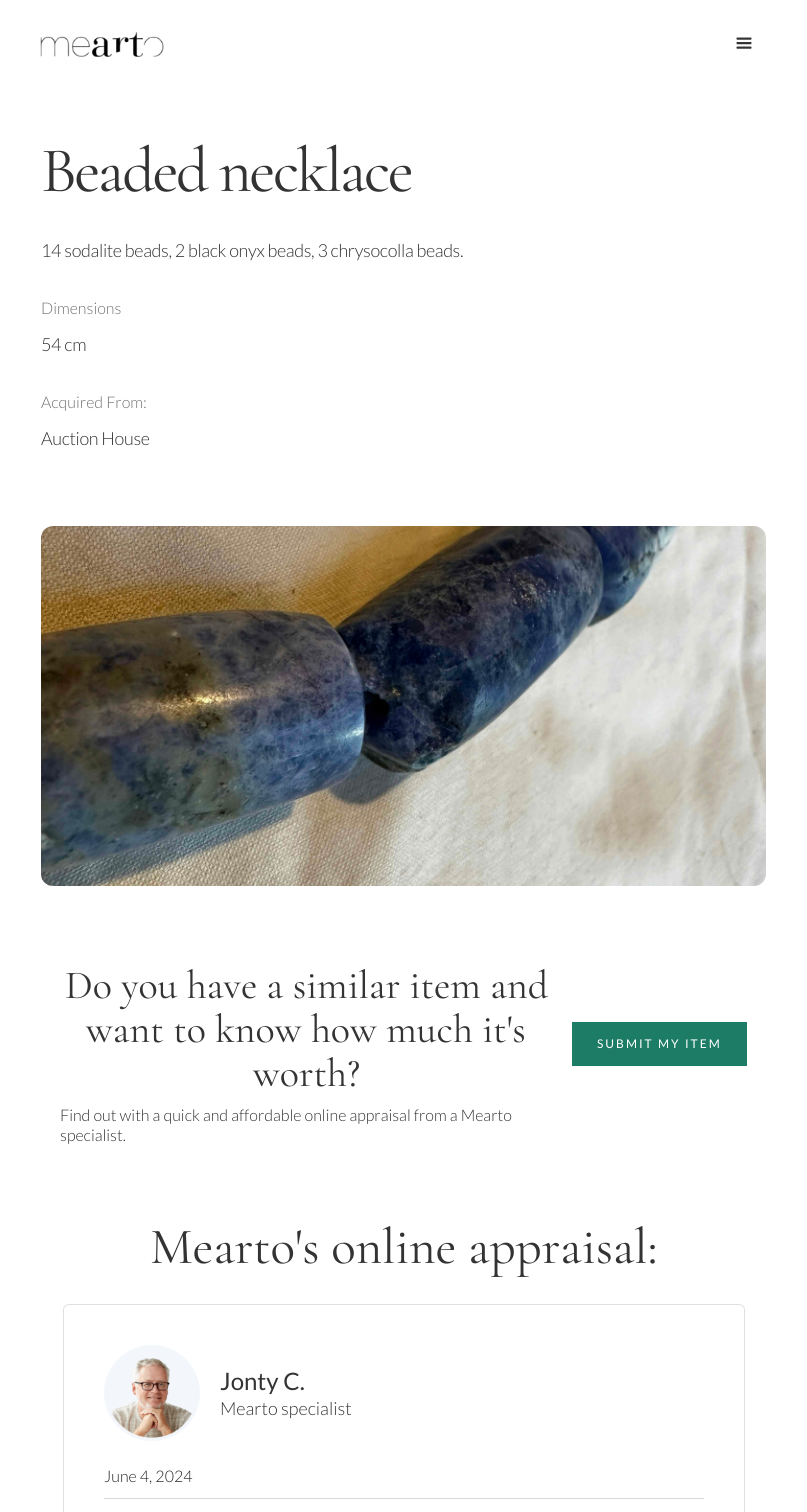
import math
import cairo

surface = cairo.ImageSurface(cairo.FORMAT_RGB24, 807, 1512)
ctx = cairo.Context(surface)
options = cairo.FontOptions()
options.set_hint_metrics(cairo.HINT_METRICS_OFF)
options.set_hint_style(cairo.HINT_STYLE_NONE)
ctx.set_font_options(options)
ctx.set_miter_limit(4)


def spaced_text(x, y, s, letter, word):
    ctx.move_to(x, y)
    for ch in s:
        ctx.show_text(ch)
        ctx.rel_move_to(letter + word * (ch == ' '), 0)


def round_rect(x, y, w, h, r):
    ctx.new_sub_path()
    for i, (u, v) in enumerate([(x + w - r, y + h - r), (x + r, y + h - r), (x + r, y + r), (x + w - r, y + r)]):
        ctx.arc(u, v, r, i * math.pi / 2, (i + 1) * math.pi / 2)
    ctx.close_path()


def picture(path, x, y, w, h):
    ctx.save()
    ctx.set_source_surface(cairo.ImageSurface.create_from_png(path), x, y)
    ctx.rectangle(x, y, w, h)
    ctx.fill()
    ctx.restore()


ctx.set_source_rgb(1, 1, 1)
ctx.paint()
picture("img1.png", 40, 31, 124, 26)
picture("img2.png", 736, 37, 16, 12)
ctx.select_font_face("Cormorant Garamond Light")
ctx.set_font_size(64)
ctx.set_source_rgb(0.2, 0.2, 0.2)
spaced_text(41, 191, "Beaded necklace", -2.5, 0)
ctx.select_font_face("Lato Light")
ctx.set_font_size(18)
spaced_text(41, 257, "14 sodalite beads, 2 black onyx beads, 3 chrysocolla beads.", -0.35, 0)
ctx.set_font_size(16)
ctx.set_source_rgb(0.447, 0.447, 0.447)
ctx.move_to(41, 314)
ctx.show_text("Dimensions")
ctx.set_font_size(18)
ctx.set_source_rgb(0.2, 0.2, 0.2)
spaced_text(41, 351, "54 cm", -0.35, 0)
ctx.set_font_size(16)
ctx.set_source_rgb(0.447, 0.447, 0.447)
ctx.move_to(41, 408)
ctx.show_text("Acquired From:")
ctx.set_font_size(18)
ctx.set_source_rgb(0.2, 0.2, 0.2)
spaced_text(41, 445, "Auction House", -0.35, 0)
picture("img3.png", 41, 526, 725, 360)
ctx.select_font_face("Cormorant Garamond Light")
ctx.set_font_size(40)
ctx.move_to(65, 998)
ctx.show_text("Do you have a similar item and")
ctx.move_to(86, 1042)
ctx.show_text("want to know how much it's")
ctx.move_to(253, 1086)
ctx.show_text("worth?")
ctx.select_font_face("Lato Light")
ctx.set_font_size(16)
ctx.move_to(60, 1121)
ctx.show_text("Find out with a quick and affordable online appraisal from a Mearto")
ctx.move_to(60, 1141)
ctx.show_text("specialist.")
ctx.set_source_rgb(0.114, 0.486, 0.396)
ctx.rectangle(572, 1022, 175, 44)
ctx.fill()
ctx.select_font_face("Lato")
ctx.set_font_size(12)
ctx.set_source_rgb(1, 1, 1)
spaced_text(597, 1048, "SUBMIT MY ITEM", 2, 0)
ctx.select_font_face("Cormorant Garamond Light")
ctx.set_font_size(51)
ctx.set_source_rgb(0.2, 0.2, 0.2)
ctx.move_to(150, 1263)
ctx.show_text("Mearto's online appraisal:")
round_rect(63.5, 1304.5, 681, 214, 5.5)
ctx.set_source_rgb(0.875, 0.875, 0.875)
ctx.set_line_width(1)
ctx.stroke()
ctx.set_source_rgb(0.953, 0.961, 0.984)
ctx.arc(152, 1393, 48, 0, 2 * math.pi)
ctx.fill()
picture("img4.png", 111, 1358, 81, 80)
ctx.select_font_face("Lato")
ctx.set_font_size(24)
ctx.set_source_rgb(0.2, 0.2, 0.2)
ctx.move_to(220, 1390)
ctx.show_text("Jonty C.")
ctx.select_font_face("Lato Light")
ctx.set_font_size(18)
ctx.move_to(220, 1415)
ctx.show_text("Mearto specialist")
ctx.set_source_rgb(0.847, 0.847, 0.847)
ctx.rectangle(104, 1498, 600, 1)
ctx.fill()
ctx.set_font_size(16)
ctx.set_source_rgb(0.141, 0.141, 0.141)
ctx.move_to(104, 1482)
ctx.show_text("June 4, 2024")
surface.write_to_png("page.png")
